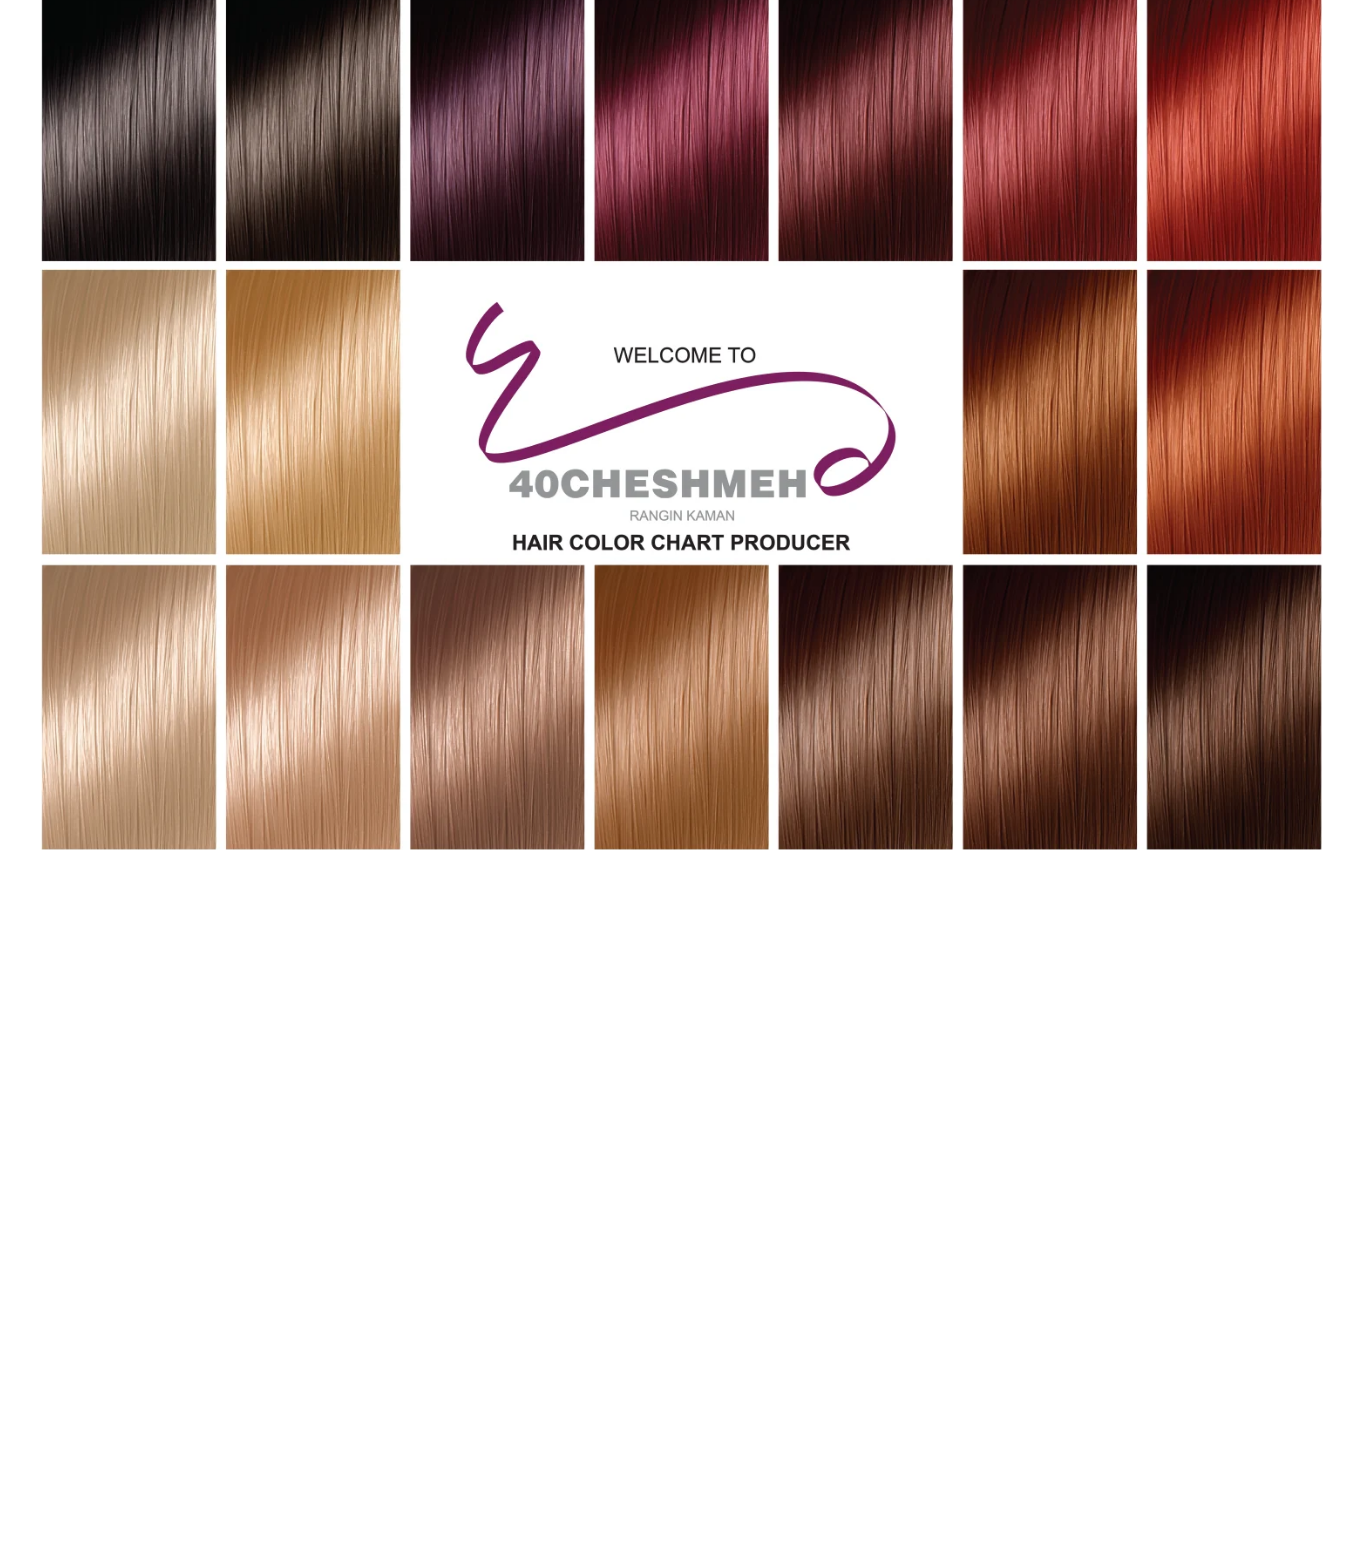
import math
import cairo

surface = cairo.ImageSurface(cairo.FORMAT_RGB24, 1363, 1549)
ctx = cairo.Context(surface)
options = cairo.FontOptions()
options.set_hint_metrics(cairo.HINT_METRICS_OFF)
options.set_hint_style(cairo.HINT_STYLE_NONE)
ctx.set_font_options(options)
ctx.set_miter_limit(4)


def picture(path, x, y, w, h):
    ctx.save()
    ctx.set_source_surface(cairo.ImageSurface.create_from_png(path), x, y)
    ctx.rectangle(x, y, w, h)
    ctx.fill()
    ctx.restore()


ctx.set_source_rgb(1, 1, 1)
ctx.paint()
picture("img1.png", 40, 0, 1283, 850)
surface.write_to_png("page.png")
